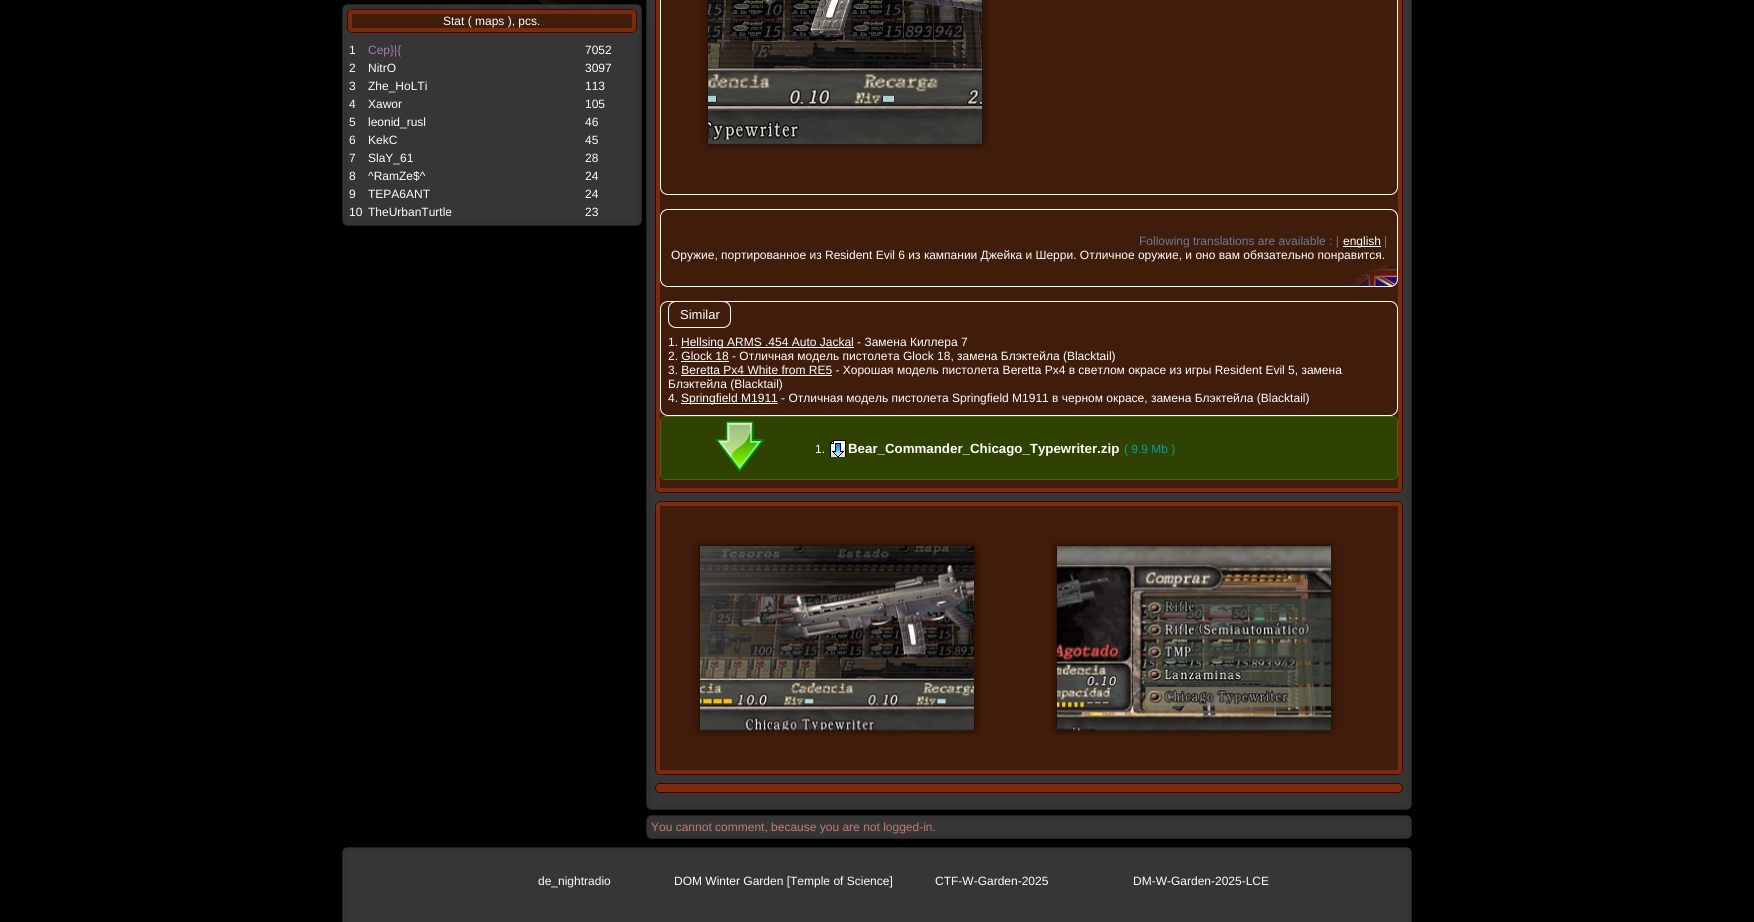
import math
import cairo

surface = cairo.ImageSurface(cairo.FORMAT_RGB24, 1754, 922)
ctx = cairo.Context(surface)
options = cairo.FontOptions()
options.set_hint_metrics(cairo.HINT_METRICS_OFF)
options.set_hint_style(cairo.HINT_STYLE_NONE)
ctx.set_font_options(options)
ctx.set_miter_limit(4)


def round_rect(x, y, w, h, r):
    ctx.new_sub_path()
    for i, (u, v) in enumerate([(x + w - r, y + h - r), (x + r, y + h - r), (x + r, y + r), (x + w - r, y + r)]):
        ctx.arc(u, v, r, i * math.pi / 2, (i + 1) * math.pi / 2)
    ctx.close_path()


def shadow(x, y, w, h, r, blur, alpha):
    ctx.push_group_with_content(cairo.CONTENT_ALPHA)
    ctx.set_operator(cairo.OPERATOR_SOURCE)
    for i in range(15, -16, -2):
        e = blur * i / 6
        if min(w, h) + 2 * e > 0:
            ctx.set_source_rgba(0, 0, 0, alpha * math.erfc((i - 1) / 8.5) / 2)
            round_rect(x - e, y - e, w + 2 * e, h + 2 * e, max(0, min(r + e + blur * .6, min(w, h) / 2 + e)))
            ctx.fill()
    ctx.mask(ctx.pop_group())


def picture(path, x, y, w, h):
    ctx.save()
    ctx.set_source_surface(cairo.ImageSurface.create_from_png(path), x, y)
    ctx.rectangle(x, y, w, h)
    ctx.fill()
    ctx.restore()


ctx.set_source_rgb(0, 0, 0)
ctx.paint()
picture("img1.png", 429, 0, 966, 111)
picture("img2.png", 429, 0, 966, 111)
round_rect(342.5, 4.5, 299, 221, 5.5)
ctx.set_source_rgb(0.133, 0.133, 0.133)
ctx.set_line_width(1)
ctx.stroke()
round_rect(345, 7, 294, 216, 2)
ctx.set_source_rgba(0.267, 0.267, 0.267, 0.75)
ctx.set_line_width(4)
ctx.stroke()
ctx.set_source_rgba(0.267, 0.267, 0.267, 0.8)
ctx.rectangle(347, 9, 290, 212)
ctx.fill()
round_rect(347.5, 9.5, 289, 23, 5.5)
ctx.set_source_rgb(0.29, 0, 0)
ctx.set_line_width(1)
ctx.stroke()
round_rect(350, 12, 284, 18, 2)
ctx.set_source_rgba(0.569, 0.157, 0, 0.75)
ctx.set_line_width(4)
ctx.stroke()
ctx.set_source_rgb(0.255, 0.114, 0.043)
ctx.rectangle(352, 14, 280, 14)
ctx.fill()
ctx.select_font_face("Liberation Sans")
ctx.set_font_size(12)
ctx.set_source_rgb(1, 1, 1)
ctx.move_to(443, 25)
ctx.show_text("Stat ( maps ), pcs.")
ctx.move_to(349, 54)
ctx.show_text("1")
ctx.set_source_rgb(0.659, 0.478, 0.678)
ctx.move_to(368, 54)
ctx.show_text("Cep}|{")
ctx.set_source_rgb(1, 1, 1)
ctx.move_to(585, 54)
ctx.show_text("7052")
ctx.move_to(349, 72)
ctx.show_text("2")
ctx.move_to(368, 72)
ctx.show_text("NitrO")
ctx.move_to(585, 72)
ctx.show_text("3097")
ctx.move_to(349, 90)
ctx.show_text("3")
ctx.move_to(368, 90)
ctx.show_text("Zhе_НоLTi")
ctx.move_to(585, 90)
ctx.show_text("113")
ctx.move_to(349, 108)
ctx.show_text("4")
ctx.move_to(368, 108)
ctx.show_text("Xawor")
ctx.move_to(585, 108)
ctx.show_text("105")
ctx.move_to(349, 126)
ctx.show_text("5")
ctx.move_to(368, 126)
ctx.show_text("leonid_rusl")
ctx.move_to(585, 126)
ctx.show_text("46")
ctx.move_to(349, 144)
ctx.show_text("6")
ctx.move_to(368, 144)
ctx.show_text("KekC")
ctx.move_to(585, 144)
ctx.show_text("45")
ctx.move_to(349, 162)
ctx.show_text("7")
ctx.move_to(368, 162)
ctx.show_text("SlaY_61")
ctx.move_to(585, 162)
ctx.show_text("28")
ctx.move_to(349, 180)
ctx.show_text("8")
ctx.move_to(368, 180)
ctx.show_text("^RamZe$^")
ctx.move_to(585, 180)
ctx.show_text("24")
ctx.move_to(349, 198)
ctx.show_text("9")
ctx.move_to(368, 198)
ctx.show_text("TEPA6ANT")
ctx.move_to(585, 198)
ctx.show_text("24")
ctx.move_to(349, 216)
ctx.show_text("10")
ctx.move_to(368, 216)
ctx.show_text("TheUrbanTurtle")
ctx.move_to(585, 216)
ctx.show_text("23")
round_rect(646.5, -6.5, 765, 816, 5.5)
ctx.set_source_rgb(0.133, 0.133, 0.133)
ctx.set_line_width(1)
ctx.stroke()
round_rect(649, -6, 760, 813, 2)
ctx.set_source_rgba(0.267, 0.267, 0.267, 0.75)
ctx.set_line_width(4)
ctx.stroke()
ctx.set_source_rgba(0.267, 0.267, 0.267, 0.8)
ctx.rectangle(651, 0, 756, 805)
ctx.fill()
round_rect(655.5, -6.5, 747, 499, 5.5)
ctx.set_source_rgb(0.29, 0, 0)
ctx.set_line_width(1)
ctx.stroke()
round_rect(658, -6, 742, 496, 2)
ctx.set_source_rgba(0.569, 0.157, 0, 0.75)
ctx.set_line_width(4)
ctx.stroke()
ctx.set_source_rgba(0.263, 0.086, 0, 0.8)
ctx.rectangle(660, 0, 738, 488)
ctx.fill()
round_rect(660.5, -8.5, 737, 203, 7.5)
ctx.set_source_rgb(1, 1, 1)
ctx.set_line_width(1)
ctx.stroke()
ctx.set_source_rgb(0, 0, 0)
shadow(709, -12, 272, 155, 0, 4, 1)
picture("img3.png", 708, 0, 274, 144)
picture("img4.png", 1352, 265, 45, 21)
round_rect(660.5, 209.5, 737, 77, 7.5)
ctx.set_source_rgb(1, 1, 1)
ctx.stroke()
ctx.set_source_rgb(0.42, 0.482, 0.584)
ctx.move_to(1139, 245)
ctx.show_text("Following translations are available : |")
ctx.set_source_rgb(1, 1, 1)
ctx.rectangle(1343, 246, 38, 1)
ctx.fill()
ctx.move_to(1343, 245)
ctx.show_text("english")
ctx.set_source_rgb(0.42, 0.482, 0.584)
ctx.move_to(1384, 245)
ctx.show_text("|")
ctx.set_source_rgb(1, 1, 1)
ctx.move_to(671, 259)
ctx.show_text("Оружие, портированное из Resident Evil 6 из кампании Джейка и Шерри. Отличное оружие, и оно вам обязательно понравится.")
round_rect(660.5, 301.5, 737, 114, 7.5)
ctx.stroke()
round_rect(668.5, 301.5, 62, 26, 7.5)
ctx.stroke()
ctx.set_font_size(13)
ctx.move_to(680, 319)
ctx.show_text("Similar")
ctx.set_font_size(12)
ctx.move_to(668, 346)
ctx.show_text("1.")
ctx.rectangle(681, 347, 173, 1)
ctx.fill()
ctx.move_to(681, 346)
ctx.show_text("Hellsing ARMS .454 Auto Jackal - Замена Киллера 7")
ctx.move_to(668, 360)
ctx.show_text("2. Glock 18 - Отличная модель пистолета Glock 18, замена Блэктейла (Blacktail)")
ctx.rectangle(681, 361, 48, 1)
ctx.fill()
ctx.move_to(668, 374)
ctx.show_text("3. Beretta Px4 White from RE5 - Хорошая модель пистолета Beretta Px4 в светлом окрасе из игры Resident Evil 5, замена")
ctx.rectangle(681, 375, 151, 1)
ctx.fill()
ctx.move_to(668, 388)
ctx.show_text("Блэктейла (Blacktail)")
ctx.move_to(668, 402)
ctx.show_text("4.")
ctx.rectangle(681, 403, 97, 1)
ctx.fill()
ctx.move_to(681, 402)
ctx.show_text("Springfield M1911 - Отличная модель пистолета Springfield M1911 в черном окрасе, замена Блэктейла (Blacktail)")
round_rect(660.5, 416.5, 737, 63, 5.5)
ctx.set_source_rgb(0.247, 0.427, 0)
ctx.stroke()
round_rect(663, 419, 732, 58, 2)
ctx.set_source_rgba(0.173, 0.298, 0, 0.75)
ctx.set_line_width(4)
ctx.stroke()
ctx.set_source_rgb(0.188, 0.259, 0.008)
ctx.rectangle(665, 421, 728, 54)
ctx.fill()
picture("img5.png", 715, 421, 50, 51)
ctx.set_source_rgb(1, 1, 1)
ctx.move_to(815, 453)
ctx.show_text("1.")
picture("img6.png", 830, 440, 16, 17)
ctx.select_font_face("Liberation Sans", cairo.FONT_SLANT_NORMAL, cairo.FONT_WEIGHT_BOLD)
ctx.set_font_size(13.3)
ctx.move_to(848, 453)
ctx.show_text("Bear_Commander_Chicago_Typewriter.zip")
ctx.select_font_face("Liberation Sans")
ctx.set_font_size(12)
ctx.set_source_rgb(0.012, 0.616, 0.655)
ctx.move_to(1124, 453)
ctx.show_text("( 9.9 Mb )")
round_rect(655.5, 501.5, 747, 273, 5.5)
ctx.set_source_rgb(0.29, 0, 0)
ctx.set_line_width(1)
ctx.stroke()
round_rect(658, 504, 742, 268, 2)
ctx.set_source_rgba(0.569, 0.157, 0, 0.75)
ctx.set_line_width(4)
ctx.stroke()
ctx.set_source_rgb(0.251, 0.11, 0.043)
ctx.rectangle(660, 506, 738, 264)
ctx.fill()
ctx.set_source_rgb(0, 0, 0)
shadow(701, 547, 272, 182, 0, 4, 1)
picture("img7.png", 700, 546, 274, 185)
shadow(1058, 547, 272, 182, 0, 4, 1)
picture("img8.png", 1057, 546, 275, 185)
round_rect(655.5, 783.5, 747, 9, 4.5)
ctx.set_source_rgb(0.29, 0, 0)
ctx.set_line_width(1)
ctx.stroke()
ctx.set_source_rgba(0.569, 0.157, 0, 0.75)
round_rect(656, 784, 746, 8, 4)
ctx.fill()
round_rect(646.5, 815.5, 765, 23, 5.5)
ctx.set_source_rgb(0.133, 0.133, 0.133)
ctx.stroke()
round_rect(649, 818, 760, 18, 2)
ctx.set_source_rgba(0.267, 0.267, 0.267, 0.75)
ctx.set_line_width(4)
ctx.stroke()
ctx.set_source_rgb(0.212, 0.212, 0.212)
ctx.rectangle(651, 820, 756, 14)
ctx.fill()
ctx.set_source_rgb(0.757, 0.471, 0.471)
ctx.move_to(651, 831)
ctx.show_text("You cannot comment, because you are not logged-in.")
round_rect(342.5, 847.5, 1069, 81, 5.5)
ctx.set_source_rgb(0.133, 0.133, 0.133)
ctx.set_line_width(1)
ctx.stroke()
round_rect(345, 850, 1064, 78, 2)
ctx.set_source_rgba(0.267, 0.267, 0.267, 0.75)
ctx.set_line_width(4)
ctx.stroke()
ctx.set_source_rgb(0.212, 0.212, 0.212)
ctx.rectangle(347, 852, 1060, 70)
ctx.fill()
ctx.set_source_rgb(1, 1, 1)
ctx.move_to(538, 885)
ctx.show_text("de_nightradio")
ctx.move_to(674, 885)
ctx.show_text("DOM Winter Garden [Temple of Science]")
ctx.move_to(935, 885)
ctx.show_text("CTF-W-Garden-2025")
ctx.move_to(1133, 885)
ctx.show_text("DM-W-Garden-2025-LCE")
surface.write_to_png("page.png")
